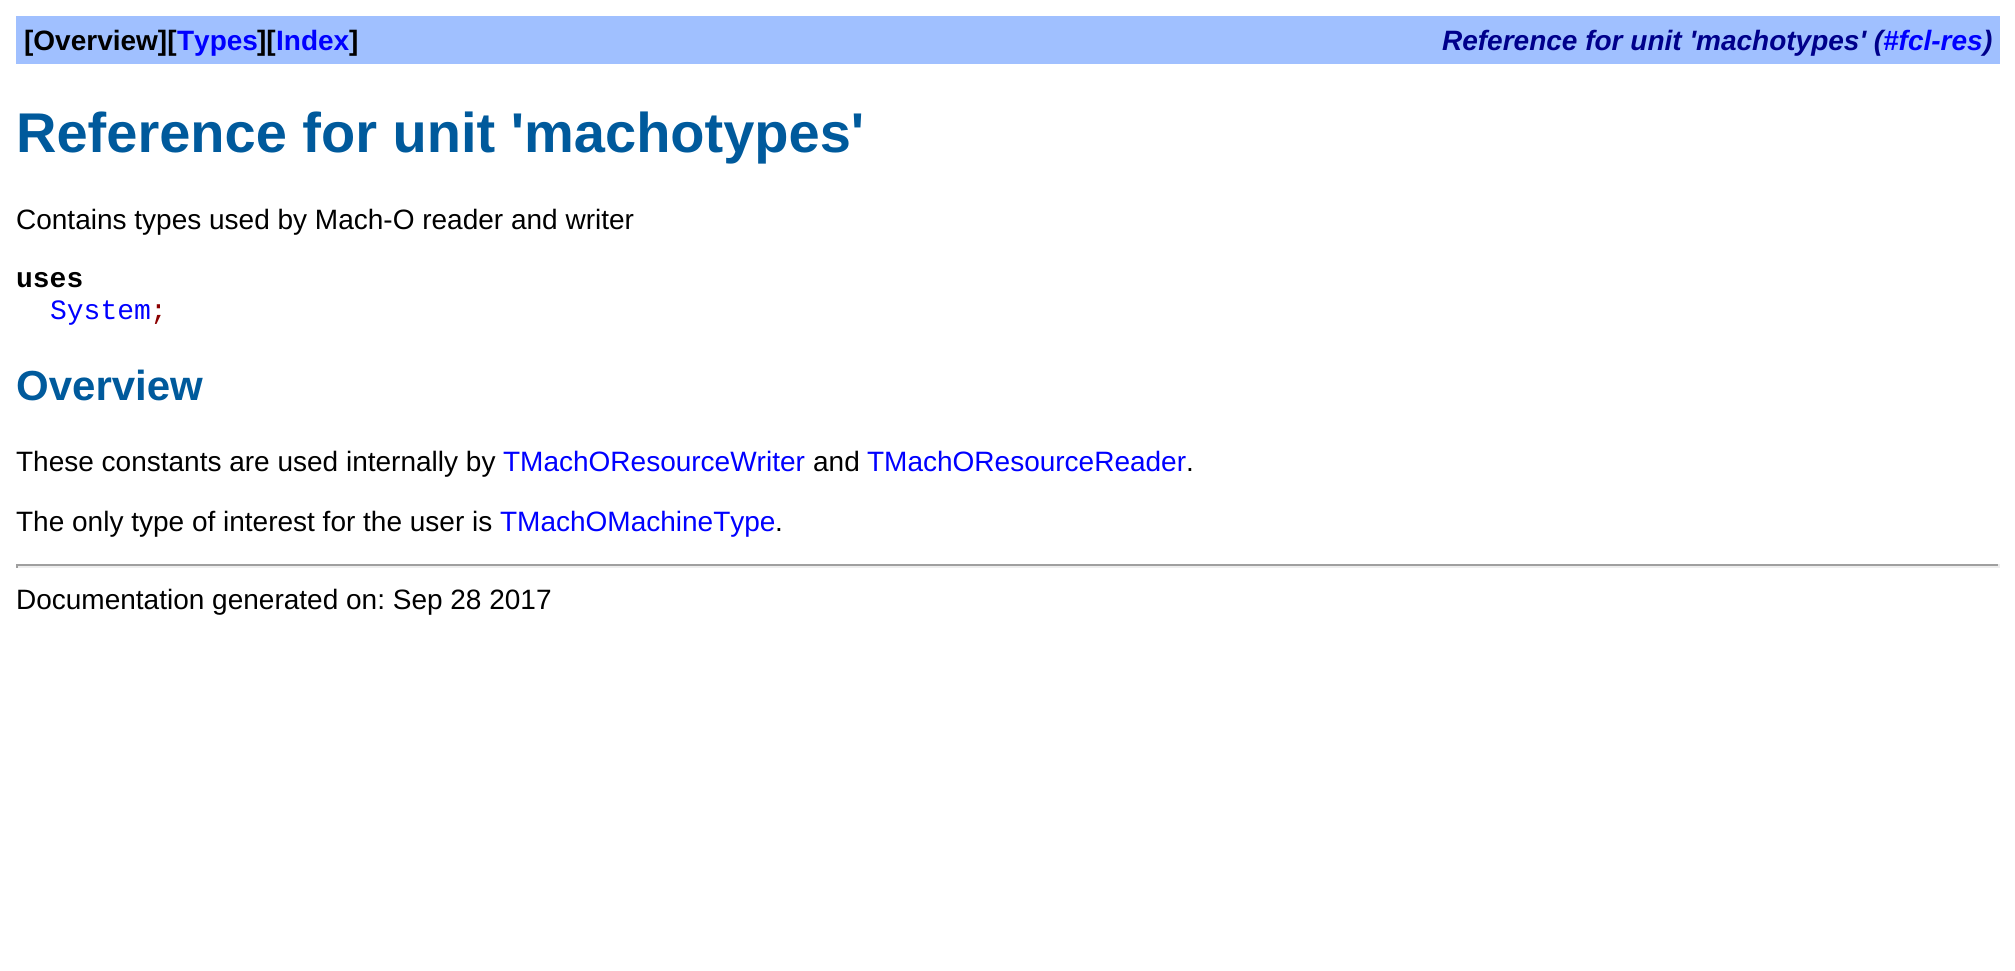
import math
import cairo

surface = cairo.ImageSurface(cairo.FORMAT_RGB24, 2015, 971)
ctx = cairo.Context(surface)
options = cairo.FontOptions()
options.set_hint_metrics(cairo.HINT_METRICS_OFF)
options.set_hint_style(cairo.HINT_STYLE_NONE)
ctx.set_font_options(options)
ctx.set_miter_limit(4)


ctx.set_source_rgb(1, 1, 1)
ctx.paint()
ctx.set_source_rgb(0.627, 0.753, 1)
ctx.rectangle(16, 16, 1984, 48)
ctx.fill()
ctx.select_font_face("Liberation Sans", cairo.FONT_SLANT_NORMAL, cairo.FONT_WEIGHT_BOLD)
ctx.set_font_size(28)
ctx.set_source_rgb(0, 0, 0)
ctx.move_to(24, 50)
ctx.show_text("[Overview][")
ctx.set_source_rgb(0, 0, 1)
ctx.move_to(177, 50)
ctx.show_text("Types")
ctx.set_source_rgb(0, 0, 0)
ctx.move_to(257, 50)
ctx.show_text("][")
ctx.set_source_rgb(0, 0, 1)
ctx.move_to(276, 50)
ctx.show_text("Index")
ctx.set_source_rgb(0, 0, 0)
ctx.move_to(349, 50)
ctx.show_text("]")
ctx.select_font_face("Liberation Sans", cairo.FONT_SLANT_ITALIC, cairo.FONT_WEIGHT_BOLD)
ctx.set_source_rgb(0, 0, 0.545)
ctx.move_to(1442, 50)
ctx.show_text("Reference for unit 'machotypes' (")
ctx.set_source_rgb(0, 0, 1)
ctx.move_to(1883, 50)
ctx.show_text("#fcl-res")
ctx.set_source_rgb(0, 0, 0.545)
ctx.move_to(1983, 50)
ctx.show_text(")")
ctx.select_font_face("Liberation Sans", cairo.FONT_SLANT_NORMAL, cairo.FONT_WEIGHT_BOLD)
ctx.set_font_size(56)
ctx.set_source_rgb(0, 0.353, 0.612)
ctx.move_to(16, 152)
ctx.show_text("Reference for unit 'machotypes'")
ctx.select_font_face("Liberation Sans")
ctx.set_font_size(28)
ctx.set_source_rgb(0, 0, 0)
ctx.move_to(16, 229)
ctx.show_text("Contains types used by Mach-O reader and writer")
ctx.select_font_face("Liberation Mono", cairo.FONT_SLANT_NORMAL, cairo.FONT_WEIGHT_BOLD)
ctx.move_to(16, 287)
ctx.show_text("uses")
ctx.select_font_face("Liberation Mono")
ctx.set_source_rgb(0, 0, 1)
ctx.move_to(50, 319)
ctx.show_text("System")
ctx.set_source_rgb(0.545, 0, 0)
ctx.move_to(150, 319)
ctx.show_text(";")
ctx.select_font_face("Liberation Sans", cairo.FONT_SLANT_NORMAL, cairo.FONT_WEIGHT_BOLD)
ctx.set_font_size(42)
ctx.set_source_rgb(0, 0.353, 0.612)
ctx.move_to(16, 400)
ctx.show_text("Overview")
ctx.select_font_face("Liberation Sans")
ctx.set_font_size(28)
ctx.set_source_rgb(0, 0, 0)
ctx.move_to(16, 471)
ctx.show_text("These constants are used internally by")
ctx.set_source_rgb(0, 0, 1)
ctx.move_to(503, 471)
ctx.show_text("TMachOResourceWriter")
ctx.set_source_rgb(0, 0, 0)
ctx.move_to(813, 471)
ctx.show_text("and")
ctx.set_source_rgb(0, 0, 1)
ctx.move_to(867, 471)
ctx.show_text("TMachOResourceReader")
ctx.set_source_rgb(0, 0, 0)
ctx.move_to(1186, 471)
ctx.show_text(".")
ctx.move_to(16, 531)
ctx.show_text("The only type of interest for the user is")
ctx.set_source_rgb(0, 0, 1)
ctx.move_to(500, 531)
ctx.show_text("TMachOMachineType")
ctx.set_source_rgb(0, 0, 0)
ctx.move_to(775, 531)
ctx.show_text(".")
ctx.set_source_rgb(0.624, 0.624, 0.624)
ctx.rectangle(16, 564, 1984, 2)
ctx.fill()
ctx.set_source_rgb(0.933, 0.933, 0.933)
ctx.rectangle(1998, 564, 2, 4)
ctx.fill()
ctx.rectangle(16, 566, 1984, 2)
ctx.fill()
ctx.set_source_rgb(0.624, 0.624, 0.624)
ctx.rectangle(16, 564, 2, 4)
ctx.fill()
ctx.set_source_rgb(0, 0, 0)
ctx.move_to(16, 609)
ctx.show_text("Documentation generated on: Sep 28 2017")
surface.write_to_png("page.png")
